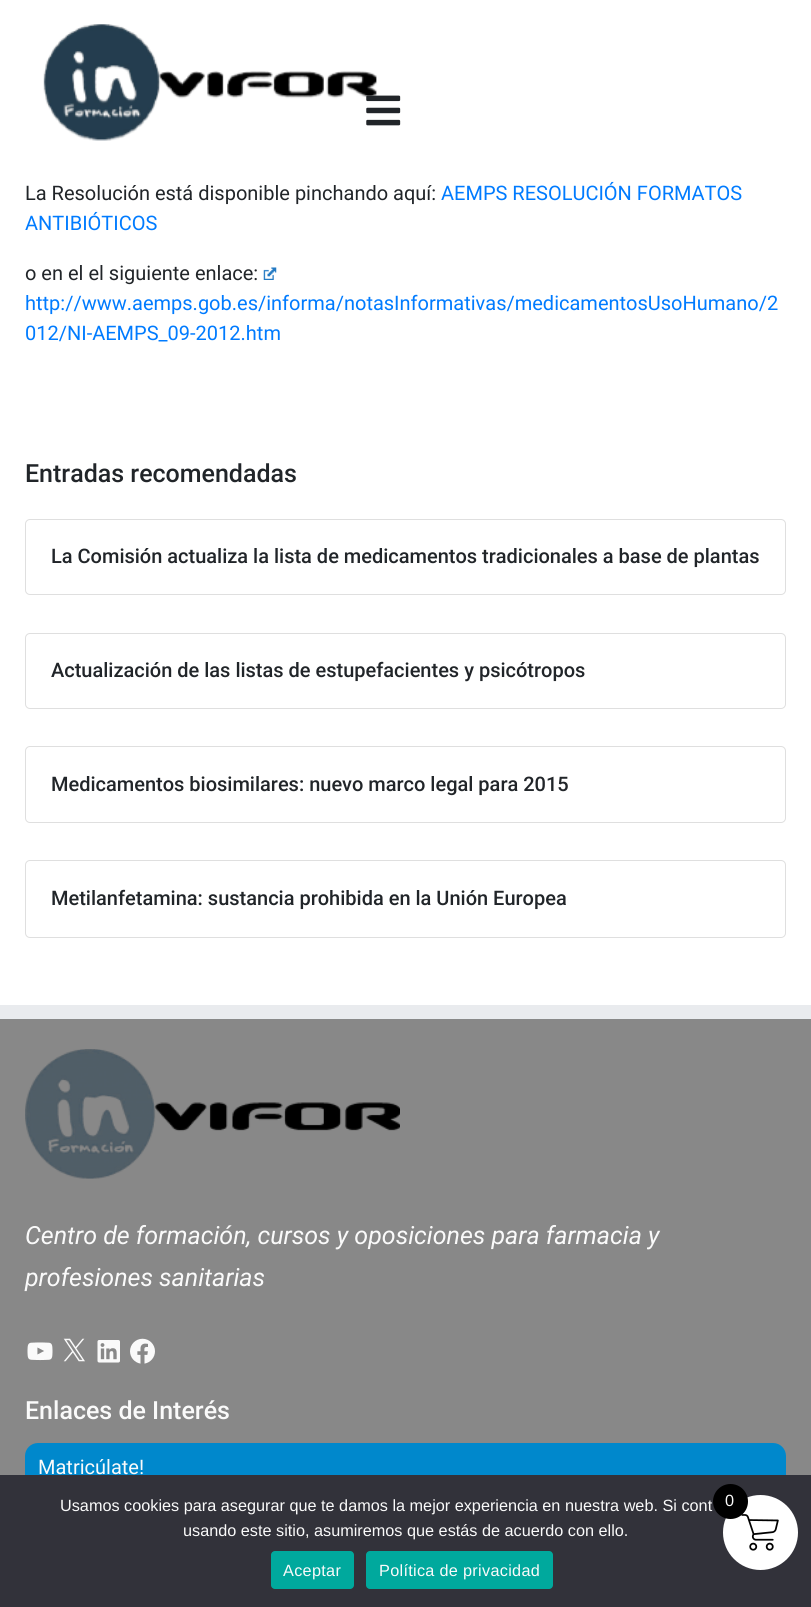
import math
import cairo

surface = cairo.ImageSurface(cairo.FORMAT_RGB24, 811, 1607)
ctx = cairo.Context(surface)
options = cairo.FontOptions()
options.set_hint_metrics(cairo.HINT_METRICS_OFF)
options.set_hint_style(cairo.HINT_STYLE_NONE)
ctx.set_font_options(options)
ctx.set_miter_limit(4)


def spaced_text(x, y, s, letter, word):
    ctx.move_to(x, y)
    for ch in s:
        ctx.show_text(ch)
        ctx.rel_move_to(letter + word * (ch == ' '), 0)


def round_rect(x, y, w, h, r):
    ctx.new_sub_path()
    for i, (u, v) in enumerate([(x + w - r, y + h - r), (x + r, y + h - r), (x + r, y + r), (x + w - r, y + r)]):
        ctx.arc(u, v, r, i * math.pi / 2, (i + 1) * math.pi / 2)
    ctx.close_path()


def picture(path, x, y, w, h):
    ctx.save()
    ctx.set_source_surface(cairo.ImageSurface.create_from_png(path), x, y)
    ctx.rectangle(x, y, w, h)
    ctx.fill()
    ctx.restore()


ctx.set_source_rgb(1, 1, 1)
ctx.paint()
picture("img1.png", 43, 24, 334, 117)
picture("img2.png", 366, 95, 35, 31)
ctx.select_font_face("Roboto")
ctx.set_font_size(20)
ctx.set_source_rgb(0.129, 0.145, 0.161)
ctx.move_to(25, 200)
ctx.show_text("La Resolución está disponible pinchando aquí:")
ctx.set_source_rgb(0, 0.482, 1)
ctx.move_to(441, 200)
ctx.show_text("AEMPS RESOLUCIÓN FORMATOS")
ctx.move_to(25, 230)
ctx.show_text("ANTIBIÓTICOS")
ctx.set_source_rgb(0.129, 0.145, 0.161)
ctx.move_to(25, 280)
ctx.show_text("o en el el siguiente enlace:")
picture("img3.png", 263, 267, 14, 13)
ctx.set_source_rgb(0, 0.482, 1)
ctx.move_to(25, 310)
ctx.show_text("http://www.aemps.gob.es/informa/notasInformativas/medicamentosUsoHumano/2")
ctx.move_to(25, 340)
ctx.show_text("012/NI-AEMPS_09-2012.htm")
ctx.select_font_face("Roboto Medium")
ctx.set_font_size(25)
ctx.set_source_rgb(0.129, 0.145, 0.161)
ctx.move_to(25, 482)
ctx.show_text("Entradas recomendadas")
round_rect(25.5, 519.5, 760, 75, 4.5)
ctx.set_source_rgb(0.875, 0.875, 0.875)
ctx.set_line_width(1)
ctx.stroke()
ctx.set_font_size(20)
ctx.set_source_rgb(0.129, 0.145, 0.161)
ctx.move_to(51, 563)
ctx.show_text("La Comisión actualiza la lista de medicamentos tradicionales a base de plantas")
round_rect(25.5, 633.5, 760, 75, 4.5)
ctx.set_source_rgb(0.875, 0.875, 0.875)
ctx.stroke()
ctx.set_source_rgb(0.129, 0.145, 0.161)
ctx.move_to(51, 677)
ctx.show_text("Actualización de las listas de estupefacientes y psicótropos")
round_rect(25.5, 746.5, 760, 76, 4.5)
ctx.set_source_rgb(0.875, 0.875, 0.875)
ctx.stroke()
ctx.set_source_rgb(0.129, 0.145, 0.161)
ctx.move_to(51, 791)
ctx.show_text("Medicamentos biosimilares: nuevo marco legal para 2015")
round_rect(25.5, 860.5, 760, 77, 4.5)
ctx.set_source_rgb(0.875, 0.875, 0.875)
ctx.stroke()
ctx.set_source_rgb(0.129, 0.145, 0.161)
ctx.move_to(51, 905)
ctx.show_text("Metilanfetamina: sustancia prohibida en la Unión Europea")
ctx.set_source_rgb(0.533, 0.533, 0.533)
ctx.rectangle(0, 1019, 811, 456)
ctx.fill()
ctx.set_source_rgb(0.914, 0.918, 0.933)
ctx.rectangle(0, 1005, 811, 13)
ctx.fill()
ctx.set_source_rgb(0.914, 0.925, 0.937)
ctx.rectangle(0, 1018, 811, 1)
ctx.fill()
picture("img4.png", 25, 1049, 375, 130)
ctx.select_font_face("Roboto", cairo.FONT_SLANT_ITALIC)
ctx.set_font_size(25)
ctx.set_source_rgb(0.98, 0.98, 0.98)
ctx.move_to(25, 1244)
ctx.show_text("Centro de formación, cursos y oposiciones para farmacia y")
ctx.move_to(25, 1286)
ctx.show_text("profesiones sanitarias")
picture("img5.png", 27, 1342, 26, 19)
picture("img6.png", 63, 1338, 22, 24)
picture("img7.png", 97, 1340, 23, 23)
picture("img8.png", 130, 1338, 25, 26)
ctx.select_font_face("Roboto Medium")
ctx.move_to(25, 1419)
ctx.show_text("Enlaces de Interés")
ctx.set_source_rgb(0, 0.533, 0.8)
round_rect(25, 1443, 761, 51, 13)
ctx.fill()
ctx.select_font_face("Roboto")
ctx.set_font_size(20)
ctx.set_source_rgb(0.98, 0.98, 0.98)
ctx.move_to(38, 1474)
ctx.show_text("Matricúlate!")
ctx.set_source_rgb(0.196, 0.196, 0.227)
ctx.rectangle(0, 1475, 811, 132)
ctx.fill()
ctx.select_font_face("Liberation Sans")
ctx.set_font_size(16.25)
ctx.set_source_rgb(0.98, 0.98, 0.98)
ctx.move_to(60, 1511)
ctx.show_text("Usamos cookies para asegurar que te damos la mejor experiencia en nuestra web. Si cont")
ctx.move_to(183, 1536)
ctx.show_text("usando este sitio, asumiremos que estás de acuerdo con ello.")
ctx.set_source_rgb(0, 0.663, 0.616)
round_rect(271, 1551, 83, 38, 4)
ctx.fill()
ctx.set_source_rgb(0.98, 0.98, 0.98)
spaced_text(283, 1576, "Aceptar", 0.3, 0)
ctx.set_source_rgb(0, 0.663, 0.616)
round_rect(366, 1551, 187, 38, 4)
ctx.fill()
ctx.set_source_rgb(0.98, 0.98, 0.98)
spaced_text(379, 1576, "Política de privacidad", 0.3, 0)
ctx.set_source_rgb(1, 1, 1)
ctx.new_path()
ctx.arc(760.5, 1532.5, 37.5, 0, 2 * math.pi)
ctx.fill()
picture("img9.png", 741, 1514, 38, 37)
ctx.set_source_rgb(0, 0, 0)
ctx.arc(730.5, 1501.5, 17.5, 0, 2 * math.pi)
ctx.fill()
ctx.set_source_rgb(0.98, 0.98, 0.98)
ctx.move_to(725, 1506)
ctx.show_text("0")
surface.write_to_png("page.png")
